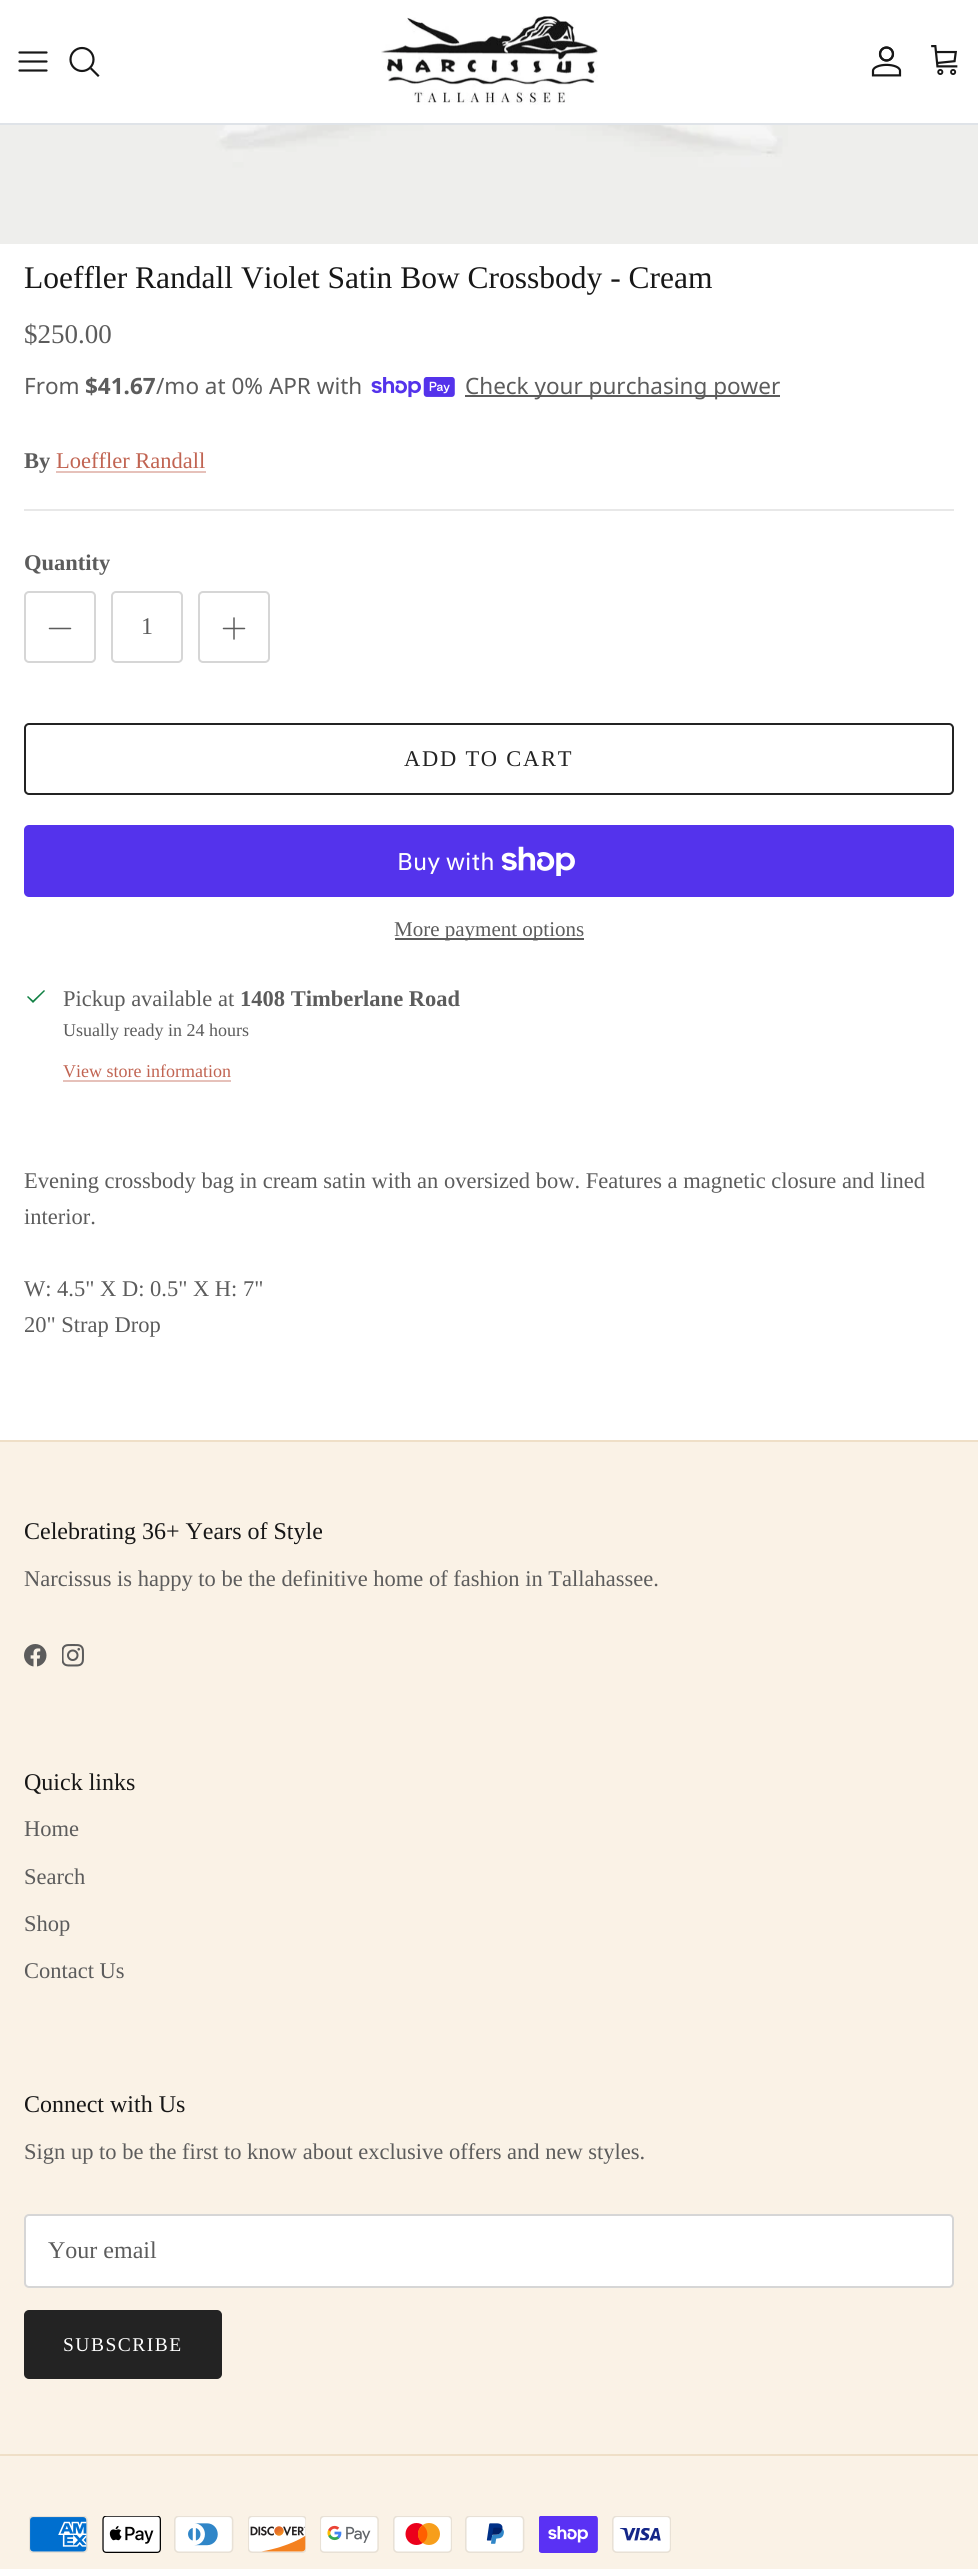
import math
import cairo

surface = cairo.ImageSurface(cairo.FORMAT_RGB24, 978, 2569)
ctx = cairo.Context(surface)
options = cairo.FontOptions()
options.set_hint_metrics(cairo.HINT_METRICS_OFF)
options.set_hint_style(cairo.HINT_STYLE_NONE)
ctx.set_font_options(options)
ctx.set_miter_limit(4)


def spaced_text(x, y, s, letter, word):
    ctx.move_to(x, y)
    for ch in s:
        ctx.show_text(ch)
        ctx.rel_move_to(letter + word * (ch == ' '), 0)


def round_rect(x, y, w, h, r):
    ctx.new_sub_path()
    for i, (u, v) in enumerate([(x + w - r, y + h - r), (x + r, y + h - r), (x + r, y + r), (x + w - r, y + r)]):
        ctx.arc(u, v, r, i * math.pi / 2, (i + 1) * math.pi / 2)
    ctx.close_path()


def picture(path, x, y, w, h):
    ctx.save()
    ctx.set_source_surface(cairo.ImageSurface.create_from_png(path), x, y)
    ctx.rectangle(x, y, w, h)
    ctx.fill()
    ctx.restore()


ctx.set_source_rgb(1, 1, 1)
ctx.paint()
ctx.set_source_rgb(0.875, 0.89, 0.91)
ctx.rectangle(0, 123, 978, 2)
ctx.fill()
ctx.new_path()
ctx.move_to(19.5, 61.5)
ctx.line_to(46.5, 61.5)
ctx.move_to(19.5, 52.5)
ctx.line_to(46.5, 52.5)
ctx.move_to(19.5, 70.5)
ctx.line_to(46.5, 70.5)
ctx.set_source_rgb(0.09, 0.09, 0.09)
ctx.set_line_width(2.2)
ctx.set_line_cap(cairo.LINE_CAP_ROUND)
ctx.set_line_join(cairo.LINE_JOIN_ROUND)
ctx.stroke()
ctx.arc(82, 59.5, 11.5, 0, 2 * math.pi)
ctx.set_line_cap(cairo.LINE_CAP_BUTT)
ctx.set_line_join(cairo.LINE_JOIN_MITER)
ctx.stroke()
ctx.new_path()
ctx.move_to(91.5, 69)
ctx.line_to(98, 75.5)
ctx.set_line_cap(cairo.LINE_CAP_SQUARE)
ctx.stroke()
picture("img1.png", 381, 16, 217, 89)
picture("img2.png", 871, 46, 31, 31)
picture("img3.png", 931, 45, 27, 30)
picture("img4.png", 0, 125, 978, 119)
ctx.select_font_face("Liberation Serif")
ctx.set_font_size(31.5)
ctx.move_to(24, 288)
ctx.show_text("Loeffler Randall Violet Satin Bow Crossbody - Cream")
ctx.set_font_size(27)
ctx.set_source_rgb(0.361, 0.361, 0.361)
ctx.move_to(24, 343)
ctx.show_text("$250.00")
ctx.select_font_face("Noto Sans")
ctx.set_font_size(22.5)
ctx.move_to(24, 394)
ctx.show_text("From")
ctx.select_font_face("Noto Sans", cairo.FONT_SLANT_NORMAL, cairo.FONT_WEIGHT_BOLD)
ctx.move_to(85, 394)
ctx.show_text("$41.67")
ctx.select_font_face("Noto Sans")
ctx.move_to(156, 394)
ctx.show_text("/mo at 0% APR with")
picture("img5.png", 371, 377, 84, 21)
ctx.rectangle(465, 395, 315, 2)
ctx.fill()
ctx.move_to(465, 394)
ctx.show_text("Check your purchasing power")
ctx.select_font_face("Liberation Serif", cairo.FONT_SLANT_NORMAL, cairo.FONT_WEIGHT_BOLD)
ctx.move_to(24, 468)
ctx.show_text("By")
ctx.select_font_face("Liberation Serif")
ctx.set_source_rgb(0.757, 0.392, 0.322)
ctx.move_to(56, 468)
ctx.show_text("Loeffler Randall")
ctx.set_source_rgb(0.902, 0.757, 0.729)
ctx.rectangle(56, 471, 150, 2)
ctx.fill()
ctx.set_source_rgb(0.91, 0.91, 0.91)
ctx.rectangle(24, 509, 930, 2)
ctx.fill()
ctx.select_font_face("Liberation Serif", cairo.FONT_SLANT_NORMAL, cairo.FONT_WEIGHT_BOLD)
ctx.set_source_rgb(0.361, 0.361, 0.361)
ctx.move_to(24, 570)
ctx.show_text("Quantity")
round_rect(25, 592, 70, 70, 4)
ctx.set_source_rgb(0.839, 0.839, 0.839)
ctx.set_line_width(2)
ctx.set_line_cap(cairo.LINE_CAP_BUTT)
ctx.stroke()
ctx.new_path()
ctx.move_to(49.5, 628.5)
ctx.line_to(70.5, 628.5)
ctx.set_source_rgb(0.361, 0.361, 0.361)
ctx.set_line_width(1.5)
ctx.set_line_cap(cairo.LINE_CAP_ROUND)
ctx.set_line_join(cairo.LINE_JOIN_ROUND)
ctx.stroke()
round_rect(112, 592, 70, 70, 4)
ctx.set_source_rgb(0.839, 0.839, 0.839)
ctx.set_line_width(2)
ctx.set_line_cap(cairo.LINE_CAP_BUTT)
ctx.set_line_join(cairo.LINE_JOIN_MITER)
ctx.stroke()
ctx.select_font_face("Liberation Serif")
ctx.set_font_size(24)
ctx.set_source_rgb(0.361, 0.361, 0.361)
ctx.move_to(141, 634)
ctx.show_text("1")
round_rect(199, 592, 70, 70, 4)
ctx.set_source_rgb(0.839, 0.839, 0.839)
ctx.stroke()
ctx.new_path()
ctx.move_to(234, 618)
ctx.line_to(234, 639)
ctx.move_to(223.5, 628.5)
ctx.line_to(244.5, 628.5)
ctx.set_source_rgb(0.361, 0.361, 0.361)
ctx.set_line_width(1.5)
ctx.set_line_cap(cairo.LINE_CAP_ROUND)
ctx.set_line_join(cairo.LINE_JOIN_ROUND)
ctx.stroke()
round_rect(25, 724, 928, 70, 4)
ctx.set_source_rgb(0.137, 0.137, 0.137)
ctx.set_line_width(2)
ctx.set_line_cap(cairo.LINE_CAP_BUTT)
ctx.set_line_join(cairo.LINE_JOIN_MITER)
ctx.stroke()
ctx.set_font_size(22.5)
spaced_text(404, 766, "ADD TO CART", 1.75, 0)
ctx.set_source_rgb(0.329, 0.2, 0.922)
round_rect(24, 825, 930, 72, 5)
ctx.fill()
ctx.select_font_face("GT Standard")
ctx.set_font_size(24)
ctx.set_source_rgb(1, 1, 1)
ctx.move_to(397, 870)
ctx.show_text("Buy with")
picture("img6.png", 501, 846, 74, 30)
ctx.set_source_rgb(0.361, 0.361, 0.361)
ctx.rectangle(395, 938, 189, 2)
ctx.fill()
ctx.select_font_face("Liberation Serif")
ctx.set_font_size(21)
ctx.move_to(394, 936)
ctx.show_text("More payment options")
ctx.set_source_rgb(0.063, 0.502, 0.263)
ctx.new_path()
ctx.move_to(44, 990)
ctx.line_to(45, 991)
ctx.line_to(33, 1003)
ctx.line_to(27, 997)
ctx.line_to(28, 996)
ctx.line_to(33, 1000.5)
ctx.close_path()
ctx.fill()
ctx.set_font_size(22.5)
ctx.set_source_rgb(0.361, 0.361, 0.361)
ctx.move_to(63, 1006)
ctx.show_text("Pickup available at")
ctx.select_font_face("Liberation Serif", cairo.FONT_SLANT_NORMAL, cairo.FONT_WEIGHT_BOLD)
ctx.move_to(240, 1006)
ctx.show_text("1408 Timberlane Road")
ctx.select_font_face("Liberation Serif")
ctx.set_font_size(18)
ctx.move_to(63, 1036)
ctx.show_text("Usually ready in 24 hours")
ctx.set_source_rgb(0.757, 0.392, 0.322)
ctx.move_to(63, 1077)
ctx.show_text("View store information")
ctx.set_source_rgb(0.902, 0.757, 0.729)
ctx.rectangle(63, 1080, 168, 2)
ctx.fill()
ctx.set_font_size(22.5)
ctx.set_source_rgb(0.361, 0.361, 0.361)
ctx.move_to(24, 1188)
ctx.show_text("Evening crossbody bag in cream satin with an oversized bow. Features a magnetic closure and lined")
ctx.move_to(24, 1224)
ctx.show_text("interior.")
ctx.move_to(24, 1296)
ctx.show_text("W: 4.5\" X D: 0.5\" X H: 7\"")
ctx.move_to(24, 1332)
ctx.show_text("20\" Strap Drop")
ctx.set_source_rgb(0.98, 0.949, 0.902)
ctx.rectangle(0, 1442, 978, 1127)
ctx.fill()
ctx.set_source_rgb(0.937, 0.875, 0.78)
ctx.rectangle(0, 1440, 978, 2)
ctx.fill()
ctx.set_font_size(24)
ctx.set_source_rgb(0.09, 0.09, 0.09)
ctx.move_to(24, 1539)
ctx.show_text("Celebrating 36+ Years of Style")
ctx.set_font_size(22.5)
ctx.set_source_rgb(0.361, 0.361, 0.361)
ctx.move_to(24, 1586)
ctx.show_text("Narcissus is happy to be the definitive home of fashion in Tallahassee.")
picture("img7.png", 24, 1644, 23, 23)
picture("img8.png", 62, 1644, 22, 23)
ctx.set_font_size(24)
ctx.set_source_rgb(0.09, 0.09, 0.09)
ctx.move_to(24, 1790)
ctx.show_text("Quick links")
ctx.set_font_size(22.5)
ctx.set_source_rgb(0.361, 0.361, 0.361)
ctx.move_to(24, 1836)
ctx.show_text("Home")
ctx.move_to(24, 1884)
ctx.show_text("Search")
ctx.move_to(24, 1931)
ctx.show_text("Shop")
ctx.move_to(24, 1978)
ctx.show_text("Contact Us")
ctx.set_font_size(24)
ctx.set_source_rgb(0.09, 0.09, 0.09)
ctx.move_to(24, 2112)
ctx.show_text("Connect with Us")
ctx.set_font_size(22.5)
ctx.set_source_rgb(0.361, 0.361, 0.361)
ctx.move_to(24, 2159)
ctx.show_text("Sign up to be the first to know about exclusive offers and new styles.")
ctx.set_source_rgb(1, 1, 1)
round_rect(25, 2215, 928, 72, 4)
ctx.fill_preserve()
ctx.set_source_rgb(0.839, 0.839, 0.839)
ctx.stroke()
ctx.set_font_size(24)
ctx.set_source_rgb(0.361, 0.361, 0.361)
ctx.move_to(48, 2258)
ctx.show_text("Your email")
ctx.set_source_rgb(0.137, 0.137, 0.137)
round_rect(25, 2311, 196, 67, 4)
ctx.fill_preserve()
ctx.stroke()
ctx.set_font_size(19.5)
ctx.set_source_rgb(1, 1, 1)
spaced_text(63, 2351, "SUBSCRIBE", 1.5, 0)
ctx.set_source_rgb(0.937, 0.875, 0.78)
ctx.rectangle(0, 2454, 978, 2)
ctx.fill()
picture("img9.png", 29, 2516, 59, 37)
picture("img10.png", 102, 2516, 59, 37)
picture("img11.png", 174, 2516, 60, 37)
picture("img12.png", 248, 2516, 58, 37)
picture("img13.png", 320, 2516, 59, 37)
picture("img14.png", 393, 2516, 59, 37)
picture("img15.png", 465, 2516, 60, 37)
picture("img16.png", 539, 2516, 59, 37)
picture("img17.png", 612, 2516, 59, 37)
surface.write_to_png("page.png")
